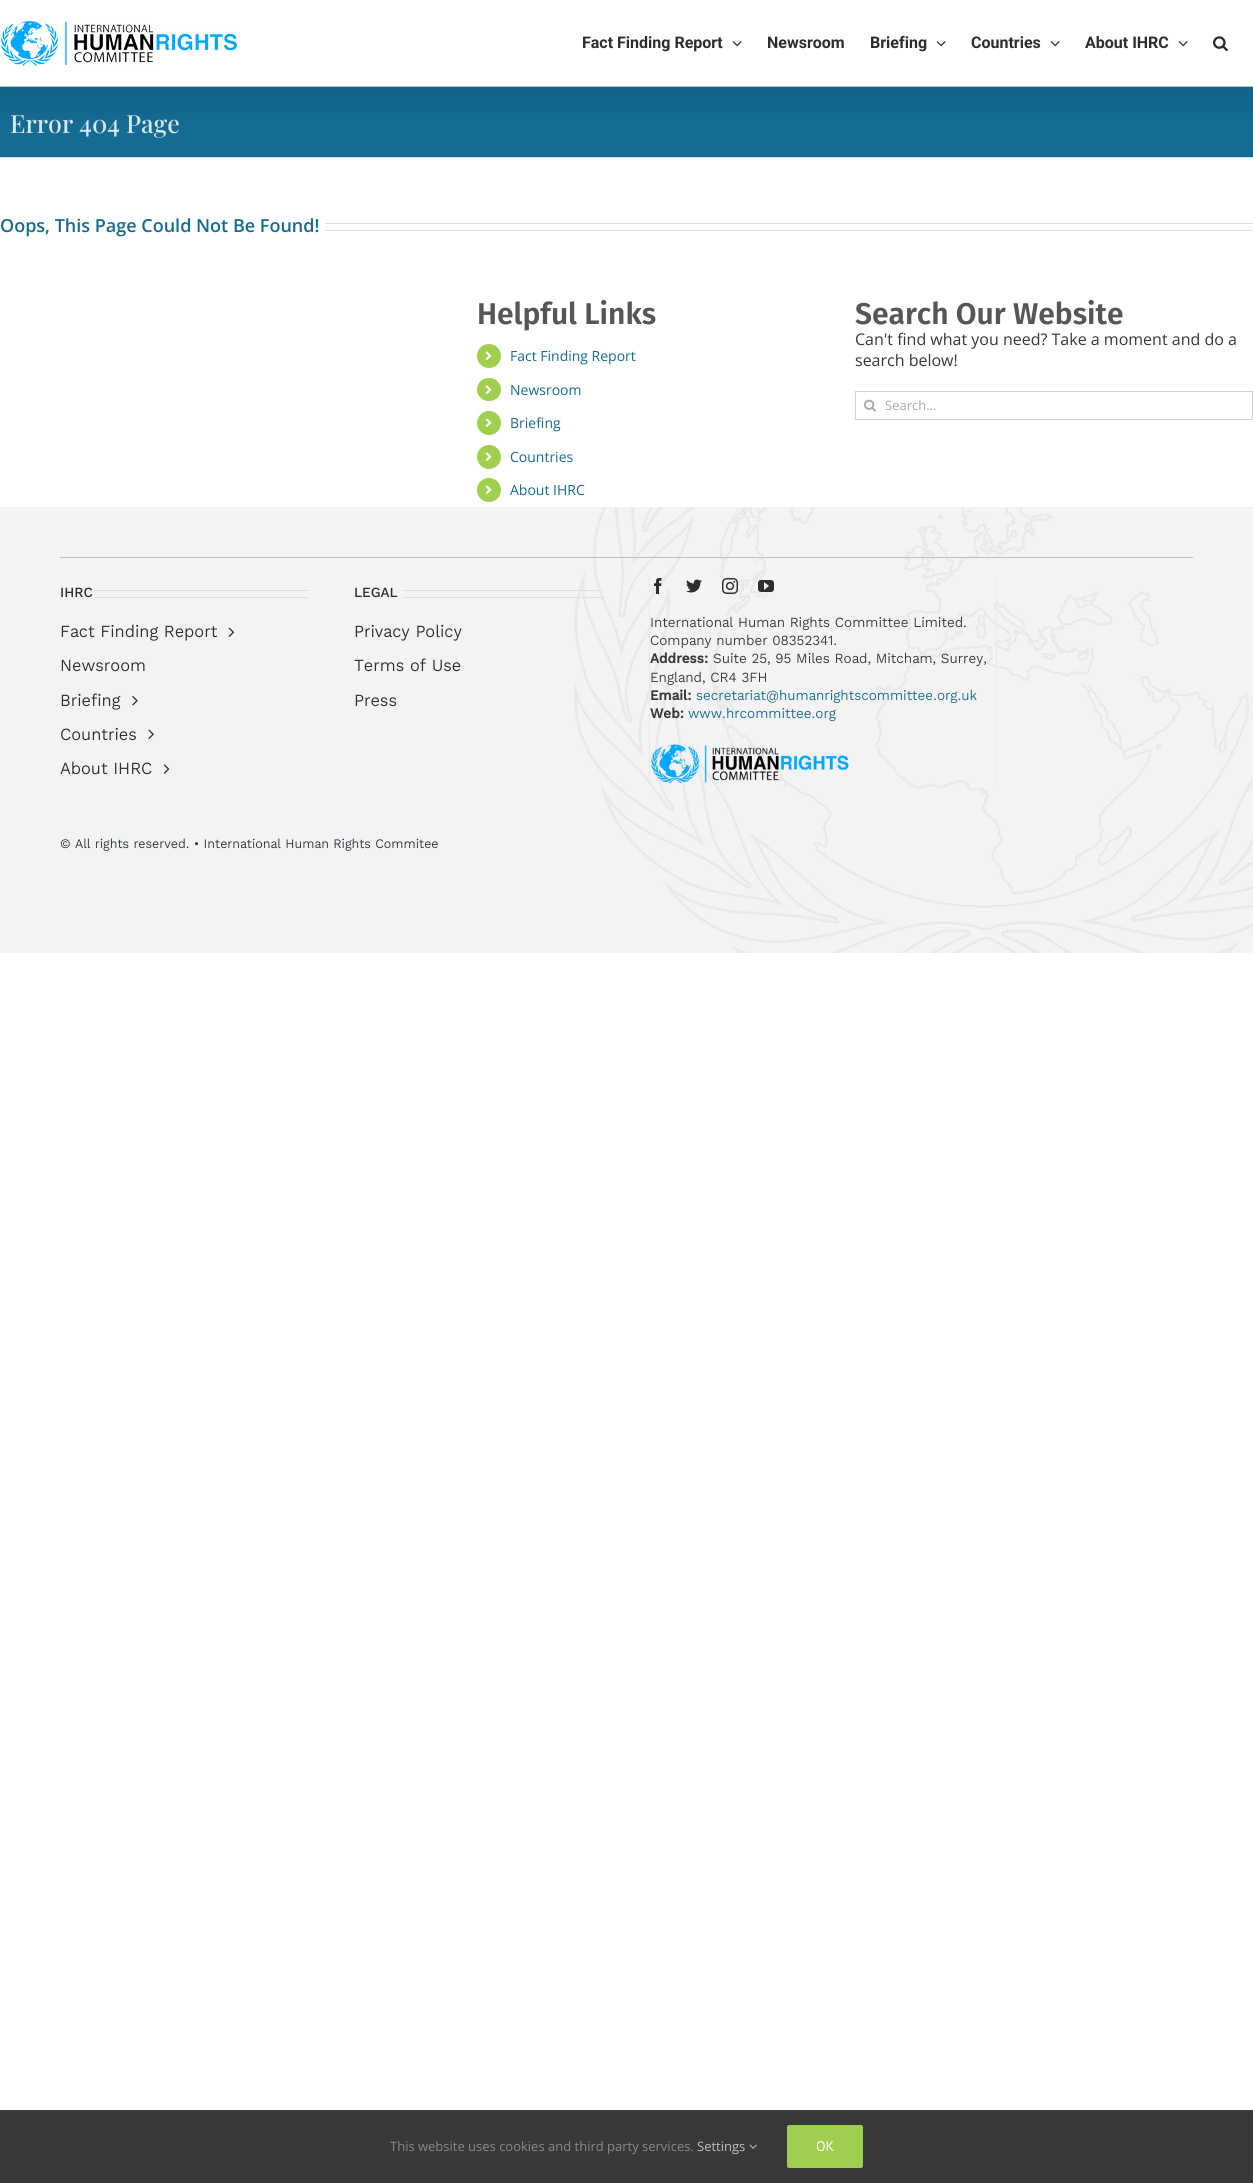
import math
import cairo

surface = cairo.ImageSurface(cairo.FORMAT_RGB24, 1253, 2183)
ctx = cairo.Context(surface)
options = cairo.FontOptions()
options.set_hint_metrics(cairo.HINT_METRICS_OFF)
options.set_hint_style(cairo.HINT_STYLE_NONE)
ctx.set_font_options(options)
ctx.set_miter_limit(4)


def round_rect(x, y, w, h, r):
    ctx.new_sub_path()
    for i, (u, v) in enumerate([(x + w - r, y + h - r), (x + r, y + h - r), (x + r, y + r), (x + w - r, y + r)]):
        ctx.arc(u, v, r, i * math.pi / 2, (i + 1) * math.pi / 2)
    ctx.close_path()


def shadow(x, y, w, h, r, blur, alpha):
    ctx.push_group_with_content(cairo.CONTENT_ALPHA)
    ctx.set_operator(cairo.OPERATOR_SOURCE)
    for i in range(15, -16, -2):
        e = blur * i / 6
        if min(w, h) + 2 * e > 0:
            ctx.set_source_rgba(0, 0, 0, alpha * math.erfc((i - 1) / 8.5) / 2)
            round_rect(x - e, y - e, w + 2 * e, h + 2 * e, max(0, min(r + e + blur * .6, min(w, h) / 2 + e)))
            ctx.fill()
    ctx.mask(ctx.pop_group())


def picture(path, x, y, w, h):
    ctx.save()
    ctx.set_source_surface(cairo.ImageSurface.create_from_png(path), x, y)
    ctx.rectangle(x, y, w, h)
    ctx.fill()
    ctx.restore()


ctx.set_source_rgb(1, 1, 1)
ctx.paint()
ctx.set_source_rgb(0.082, 0.42, 0.576)
ctx.rectangle(0, 87, 1253, 70)
ctx.fill()
ctx.set_source_rgb(0.824, 0.827, 0.831)
ctx.rectangle(0, 86, 1253, 1)
ctx.fill()
ctx.rectangle(0, 157, 1253, 1)
ctx.fill()
ctx.save()
ctx.rectangle(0, 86, 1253, 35)
ctx.clip()
ctx.set_source_rgb(0, 0, 0)
shadow(2, 12, 1249, 82, 0, 25, 0.14)
ctx.restore()
picture("img1.png", 1, 21, 236, 45)
ctx.select_font_face("Roboto", cairo.FONT_SLANT_NORMAL, cairo.FONT_WEIGHT_BOLD)
ctx.set_font_size(16)
ctx.set_source_rgb(0.176, 0.176, 0.176)
ctx.move_to(582, 48)
ctx.show_text("Fact Finding Report")
picture("img2.png", 732, 41, 10, 6)
ctx.move_to(767, 48)
ctx.show_text("Newsroom")
ctx.move_to(870, 48)
ctx.show_text("Briefing")
picture("img2.png", 936, 41, 10, 6)
ctx.move_to(971, 48)
ctx.show_text("Countries")
picture("img2.png", 1050, 41, 10, 6)
ctx.move_to(1085, 48)
ctx.show_text("About IHRC")
picture("img2.png", 1178, 41, 10, 6)
picture("img3.png", 1213, 36, 15, 16)
ctx.select_font_face("Playfair Display Medium")
ctx.set_font_size(25)
ctx.set_source_rgb(0.847, 0.902, 0.929)
ctx.move_to(10, 133)
ctx.show_text("Error 404 Page")
ctx.select_font_face("Open Sans SemiBold")
ctx.set_font_size(18)
ctx.set_source_rgb(0.082, 0.42, 0.576)
ctx.move_to(0, 232)
ctx.show_text("Oops, This Page Could Not Be Found!")
ctx.set_source_rgb(0.878, 0.871, 0.871)
ctx.rectangle(325, 223, 928, 1)
ctx.fill()
ctx.rectangle(325, 230, 928, 1)
ctx.fill()
ctx.select_font_face("Fira Sans SemiBold")
ctx.set_font_size(30)
ctx.set_source_rgb(0.337, 0.337, 0.337)
ctx.move_to(477, 324)
ctx.show_text("Helpful Links")
ctx.set_source_rgb(0.627, 0.808, 0.306)
ctx.new_path()
ctx.arc(489, 356, 12, 0, 2 * math.pi)
ctx.fill()
picture("img4.png", 485, 351, 7, 10)
ctx.select_font_face("Open Sans")
ctx.set_font_size(14)
ctx.set_source_rgb(0.082, 0.42, 0.576)
ctx.move_to(510, 361)
ctx.show_text("Fact Finding Report")
ctx.set_source_rgb(0.627, 0.808, 0.306)
round_rect(477, 378, 24, 23, 11.5)
ctx.fill()
picture("img4.png", 485, 385, 7, 10)
ctx.set_source_rgb(0.082, 0.42, 0.576)
ctx.move_to(510, 395)
ctx.show_text("Newsroom")
ctx.set_source_rgb(0.627, 0.808, 0.306)
ctx.new_path()
ctx.arc(489, 423, 12, 0, 2 * math.pi)
ctx.fill()
picture("img4.png", 485, 418, 7, 10)
ctx.set_source_rgb(0.082, 0.42, 0.576)
ctx.move_to(510, 428)
ctx.show_text("Briefing")
ctx.set_source_rgb(0.627, 0.808, 0.306)
ctx.new_path()
ctx.arc(489, 457, 12, 0, 2 * math.pi)
ctx.fill()
picture("img4.png", 485, 452, 7, 10)
ctx.set_source_rgb(0.082, 0.42, 0.576)
ctx.move_to(510, 462)
ctx.show_text("Countries")
ctx.set_source_rgb(0.627, 0.808, 0.306)
ctx.new_path()
ctx.arc(489, 490, 12, 0, 2 * math.pi)
ctx.fill()
picture("img4.png", 485, 485, 7, 10)
ctx.set_source_rgb(0.082, 0.42, 0.576)
ctx.move_to(510, 495)
ctx.show_text("About IHRC")
ctx.select_font_face("Fira Sans SemiBold")
ctx.set_font_size(30)
ctx.set_source_rgb(0.337, 0.337, 0.337)
ctx.move_to(855, 324)
ctx.show_text("Search Our Website")
ctx.select_font_face("Open Sans")
ctx.set_font_size(16)
ctx.set_source_rgb(0.22, 0.22, 0.22)
ctx.move_to(855, 345)
ctx.show_text("Can't find what you need? Take a moment and do a")
ctx.move_to(855, 366)
ctx.show_text("search below!")
ctx.rectangle(855.5, 391.5, 397, 28)
ctx.set_source_rgb(0.824, 0.824, 0.824)
ctx.set_line_width(1)
ctx.stroke()
picture("img5.png", 864, 399, 12, 13)
ctx.set_font_size(13)
ctx.set_source_rgb(0.667, 0.663, 0.663)
ctx.move_to(885, 410)
ctx.show_text("Search...")
picture("img6.png", 0, 507, 1253, 446)
ctx.set_source_rgb(0.757, 0.749, 0.749)
ctx.rectangle(60, 557, 1133, 1)
ctx.fill()
ctx.select_font_face("Kantumruy Pro Medium")
ctx.set_font_size(14)
ctx.set_source_rgb(0.176, 0.176, 0.176)
ctx.move_to(60, 597)
ctx.show_text("IHRC")
ctx.set_source_rgb(0.878, 0.871, 0.871)
ctx.rectangle(96, 590, 213, 1)
ctx.fill()
ctx.rectangle(96, 597, 213, 1)
ctx.fill()
ctx.select_font_face("Kantumruy Pro")
ctx.set_font_size(17)
ctx.set_source_rgb(0.176, 0.176, 0.176)
ctx.move_to(60, 637)
ctx.show_text("Fact Finding Report")
picture("img7.png", 228, 627, 7, 10)
ctx.move_to(60, 671)
ctx.show_text("Newsroom")
ctx.move_to(60, 706)
ctx.show_text("Briefing")
picture("img8.png", 132, 696, 6, 10)
ctx.move_to(60, 740)
ctx.show_text("Countries")
picture("img9.png", 148, 729, 6, 10)
ctx.move_to(60, 774)
ctx.show_text("About IHRC")
picture("img10.png", 163, 764, 7, 10)
ctx.select_font_face("Kantumruy Pro Medium")
ctx.set_font_size(14)
ctx.move_to(354, 597)
ctx.show_text("LEGAL")
ctx.set_source_rgb(0.878, 0.871, 0.871)
ctx.rectangle(402, 590, 202, 1)
ctx.fill()
ctx.rectangle(402, 597, 202, 1)
ctx.fill()
ctx.select_font_face("Kantumruy Pro")
ctx.set_font_size(17)
ctx.set_source_rgb(0.176, 0.176, 0.176)
ctx.move_to(354, 637)
ctx.show_text("Privacy Policy")
ctx.move_to(354, 671)
ctx.show_text("Terms of Use")
ctx.move_to(354, 706)
ctx.show_text("Press")
ctx.set_source_rgb(0.918, 0.91, 0.91)
ctx.rectangle(996, 578, 1, 207)
ctx.fill()
ctx.rectangle(649, 578, 1, 207)
ctx.fill()
picture("img11.png", 654, 578, 8, 16)
picture("img12.png", 686, 579, 16, 14)
picture("img13.png", 722, 578, 16, 16)
picture("img14.png", 758, 580, 16, 12)
ctx.set_font_size(14)
ctx.set_source_rgb(0.22, 0.22, 0.22)
ctx.move_to(650, 627)
ctx.show_text("International Human Rights Committee Limited.")
ctx.move_to(650, 645)
ctx.show_text("Company number 08352341.")
ctx.select_font_face("Kantumruy Pro", cairo.FONT_SLANT_NORMAL, cairo.FONT_WEIGHT_BOLD)
ctx.move_to(650, 663)
ctx.show_text("Address:")
ctx.select_font_face("Kantumruy Pro")
ctx.move_to(713, 663)
ctx.show_text("Suite 25, 95 Miles Road, Mitcham, Surrey,")
ctx.move_to(650, 682)
ctx.show_text("England, CR4 3FH")
ctx.select_font_face("Kantumruy Pro", cairo.FONT_SLANT_NORMAL, cairo.FONT_WEIGHT_BOLD)
ctx.move_to(650, 700)
ctx.show_text("Email:")
ctx.select_font_face("Kantumruy Pro")
ctx.set_source_rgb(0.082, 0.42, 0.576)
ctx.move_to(696, 700)
ctx.show_text("secretariat@humanrightscommittee.org.uk")
ctx.select_font_face("Kantumruy Pro", cairo.FONT_SLANT_NORMAL, cairo.FONT_WEIGHT_BOLD)
ctx.set_source_rgb(0.22, 0.22, 0.22)
ctx.move_to(650, 718)
ctx.show_text("Web:")
ctx.select_font_face("Kantumruy Pro")
ctx.set_source_rgb(0.082, 0.42, 0.576)
ctx.move_to(688, 718)
ctx.show_text("www.hrcommittee.org")
picture("img15.png", 651, 744, 198, 40)
ctx.set_font_size(13)
ctx.set_source_rgb(0.169, 0.192, 0.227)
ctx.move_to(60, 848)
ctx.show_text("© All rights reserved. • International Human Rights Commitee")
ctx.set_source_rgb(0.212, 0.22, 0.224)
ctx.rectangle(0, 2110, 1253, 73)
ctx.fill()
ctx.select_font_face("Open Sans")
ctx.set_source_rgb(0.549, 0.537, 0.537)
ctx.move_to(390, 2151)
ctx.show_text("This website uses cookies and third party services.")
ctx.set_source_rgb(0.749, 0.749, 0.749)
ctx.move_to(697, 2151)
ctx.show_text("Settings")
picture("img16.png", 749, 2144, 8, 5)
ctx.set_source_rgb(0.627, 0.808, 0.306)
round_rect(787, 2125, 76, 43, 2)
ctx.fill()
ctx.select_font_face("PT Sans")
ctx.set_font_size(14)
ctx.set_source_rgb(1, 1, 1)
ctx.move_to(816, 2151)
ctx.show_text("OK")
surface.write_to_png("page.png")
